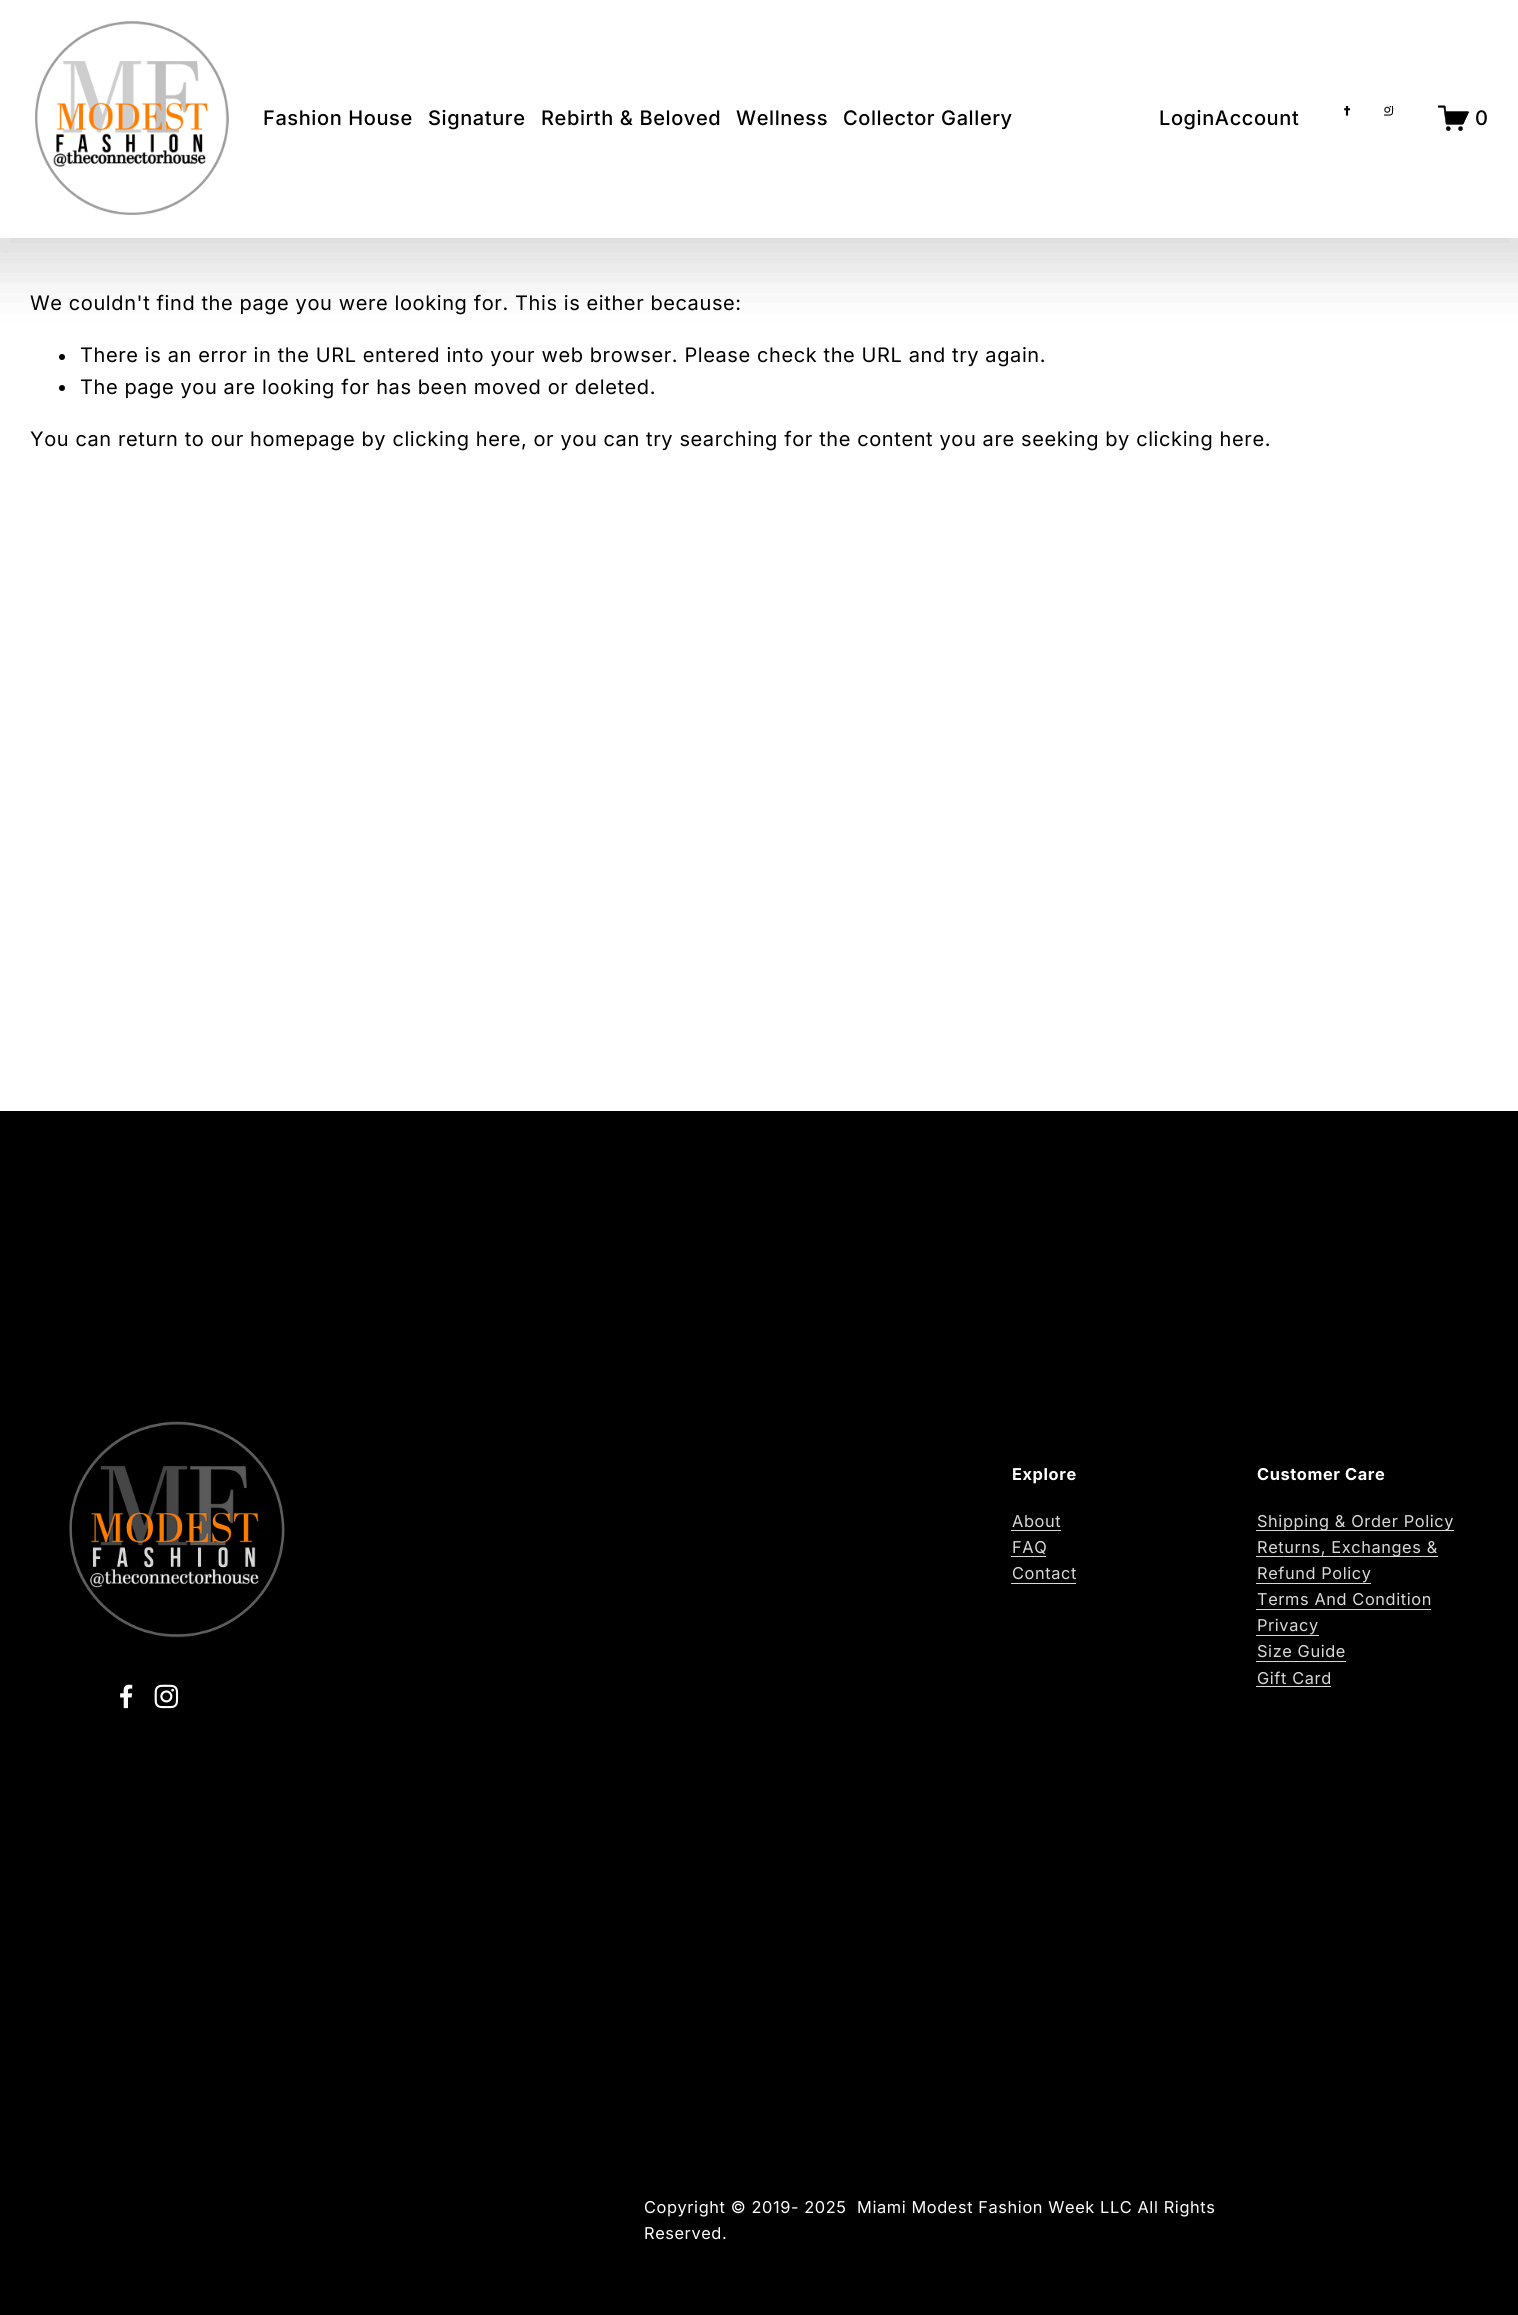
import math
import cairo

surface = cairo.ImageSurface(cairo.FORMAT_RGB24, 1518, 2315)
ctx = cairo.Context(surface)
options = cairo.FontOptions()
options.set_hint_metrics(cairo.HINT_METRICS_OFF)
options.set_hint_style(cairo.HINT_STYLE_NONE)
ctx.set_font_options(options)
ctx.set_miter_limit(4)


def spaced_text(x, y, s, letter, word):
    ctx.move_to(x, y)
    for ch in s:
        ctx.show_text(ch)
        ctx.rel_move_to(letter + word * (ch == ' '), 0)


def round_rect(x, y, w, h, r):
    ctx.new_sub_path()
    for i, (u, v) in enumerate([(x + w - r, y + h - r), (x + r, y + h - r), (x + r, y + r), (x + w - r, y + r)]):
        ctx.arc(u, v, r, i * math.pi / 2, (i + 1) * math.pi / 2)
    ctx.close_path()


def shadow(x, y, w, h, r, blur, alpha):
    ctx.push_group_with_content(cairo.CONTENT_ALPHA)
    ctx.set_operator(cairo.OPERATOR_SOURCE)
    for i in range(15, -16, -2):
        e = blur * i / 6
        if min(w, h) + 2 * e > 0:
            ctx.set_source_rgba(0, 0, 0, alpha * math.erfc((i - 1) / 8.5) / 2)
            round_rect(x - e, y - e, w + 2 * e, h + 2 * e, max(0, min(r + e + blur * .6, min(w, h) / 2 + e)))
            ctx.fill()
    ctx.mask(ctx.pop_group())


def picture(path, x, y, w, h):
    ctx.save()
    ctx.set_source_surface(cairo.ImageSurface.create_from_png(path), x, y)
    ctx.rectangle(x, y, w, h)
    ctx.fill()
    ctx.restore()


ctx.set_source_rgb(1, 1, 1)
ctx.paint()
ctx.set_source_rgb(0, 0, 0)
ctx.arc(62, 357, 3, 0, 2 * math.pi)
ctx.fill()
ctx.save()
ctx.set_fill_rule(cairo.FILL_RULE_EVEN_ODD)
ctx.new_path()
ctx.move_to(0, 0)
ctx.line_to(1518, 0)
ctx.line_to(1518, 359)
ctx.line_to(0, 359)
ctx.close_path()
ctx.move_to(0, 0)
ctx.line_to(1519, 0)
ctx.line_to(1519, 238)
ctx.line_to(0, 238)
ctx.close_path()
ctx.clip()
ctx.set_source_rgb(0, 0, 0)
shadow(-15, 0, 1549, 268, 0, 30, 0.15)
ctx.restore()
picture("img1.png", 35, 21, 194, 194)
ctx.select_font_face("Inter Medium")
ctx.set_font_size(20)
spaced_text(263, 125, "Fashion House", 0.6, 0)
spaced_text(428, 125, "Signature", 0.6, 0)
spaced_text(541, 125, "Rebirth & Beloved", 0.6, 0)
spaced_text(736, 125, "Wellness", 0.6, 0)
spaced_text(843, 125, "Collector Gallery", 0.6, 0)
spaced_text(1159, 125, "LoginAccount", 0.6, 0)
picture("img2.png", 1344, 106, 7, 10)
picture("img3.png", 1384, 106, 10, 10)
picture("img4.png", 1438, 105, 31, 26)
spaced_text(1475, 125, "0", 0.6, 0)
ctx.select_font_face("Inter")
spaced_text(30, 310, "We couldn't find the page you were looking for. This is either because:", 0.6, 0)
spaced_text(80, 362, "There is an error in the URL entered into your web browser. Please check the URL and try again.", 0.6, 0)
ctx.new_path()
ctx.arc(62, 388, 3, 0, 2 * math.pi)
ctx.fill()
spaced_text(80, 394, "The page you are looking for has been moved or deleted.", 0.6, 0)
spaced_text(30, 446, "You can return to our homepage by clicking here, or you can try searching for the content you are seeking by clicking here.", 0.6, 0)
ctx.rectangle(0, 1111, 1518, 1204)
ctx.fill()
picture("img5.png", 69, 1421, 216, 217)
ctx.select_font_face("Inter", cairo.FONT_SLANT_NORMAL, cairo.FONT_WEIGHT_BOLD)
ctx.set_font_size(16.35)
ctx.set_source_rgb(1, 1, 1)
spaced_text(1012, 1480, "Explore", 0.6, 0)
ctx.select_font_face("Inter")
ctx.set_source_rgb(0.851, 0.851, 0.851)
spaced_text(1012, 1527, "About", 0.6, 0)
ctx.rectangle(1011, 1530, 50, 1)
ctx.fill()
spaced_text(1012, 1553, "FAQ", 0.6, 0)
ctx.rectangle(1011, 1556, 35, 1)
ctx.fill()
spaced_text(1012, 1579, "Contact", 0.6, 0)
ctx.rectangle(1011, 1583, 65, 1)
ctx.fill()
ctx.select_font_face("Inter", cairo.FONT_SLANT_NORMAL, cairo.FONT_WEIGHT_BOLD)
ctx.set_source_rgb(1, 1, 1)
spaced_text(1257, 1480, "Customer Care", 0.6, 0)
ctx.set_source_rgb(0.851, 0.851, 0.851)
ctx.rectangle(1256, 1530, 198, 1)
ctx.fill()
ctx.select_font_face("Inter")
spaced_text(1257, 1527, "Shipping & Order Policy", 0.6, 0)
ctx.rectangle(1256, 1556, 182, 1)
ctx.fill()
spaced_text(1257, 1553, "Returns, Exchanges &", 0.6, 0)
spaced_text(1257, 1579, "Refund Policy", 0.6, 0)
ctx.rectangle(1256, 1583, 115, 1)
ctx.fill()
spaced_text(1257, 1605, "Terms And Condition", 0.6, 0)
ctx.rectangle(1256, 1609, 175, 1)
ctx.fill()
spaced_text(1257, 1631, "Privacy", 0.6, 0)
ctx.rectangle(1256, 1635, 63, 1)
ctx.fill()
spaced_text(1257, 1657, "Size Guide", 0.6, 0)
ctx.rectangle(1256, 1661, 90, 1)
ctx.fill()
spaced_text(1257, 1684, "Gift Card", 0.6, 0)
ctx.rectangle(1256, 1686, 75, 1)
ctx.fill()
picture("img6.png", 120, 1684, 13, 25)
picture("img7.png", 154, 1684, 25, 25)
ctx.set_source_rgb(1, 1, 1)
spaced_text(644, 2213, "Copyright © 2019- 2025  Miami Modest Fashion Week LLC All Rights", 0.6, 0)
spaced_text(644, 2239, "Reserved.", 0.6, 0)
surface.write_to_png("page.png")
